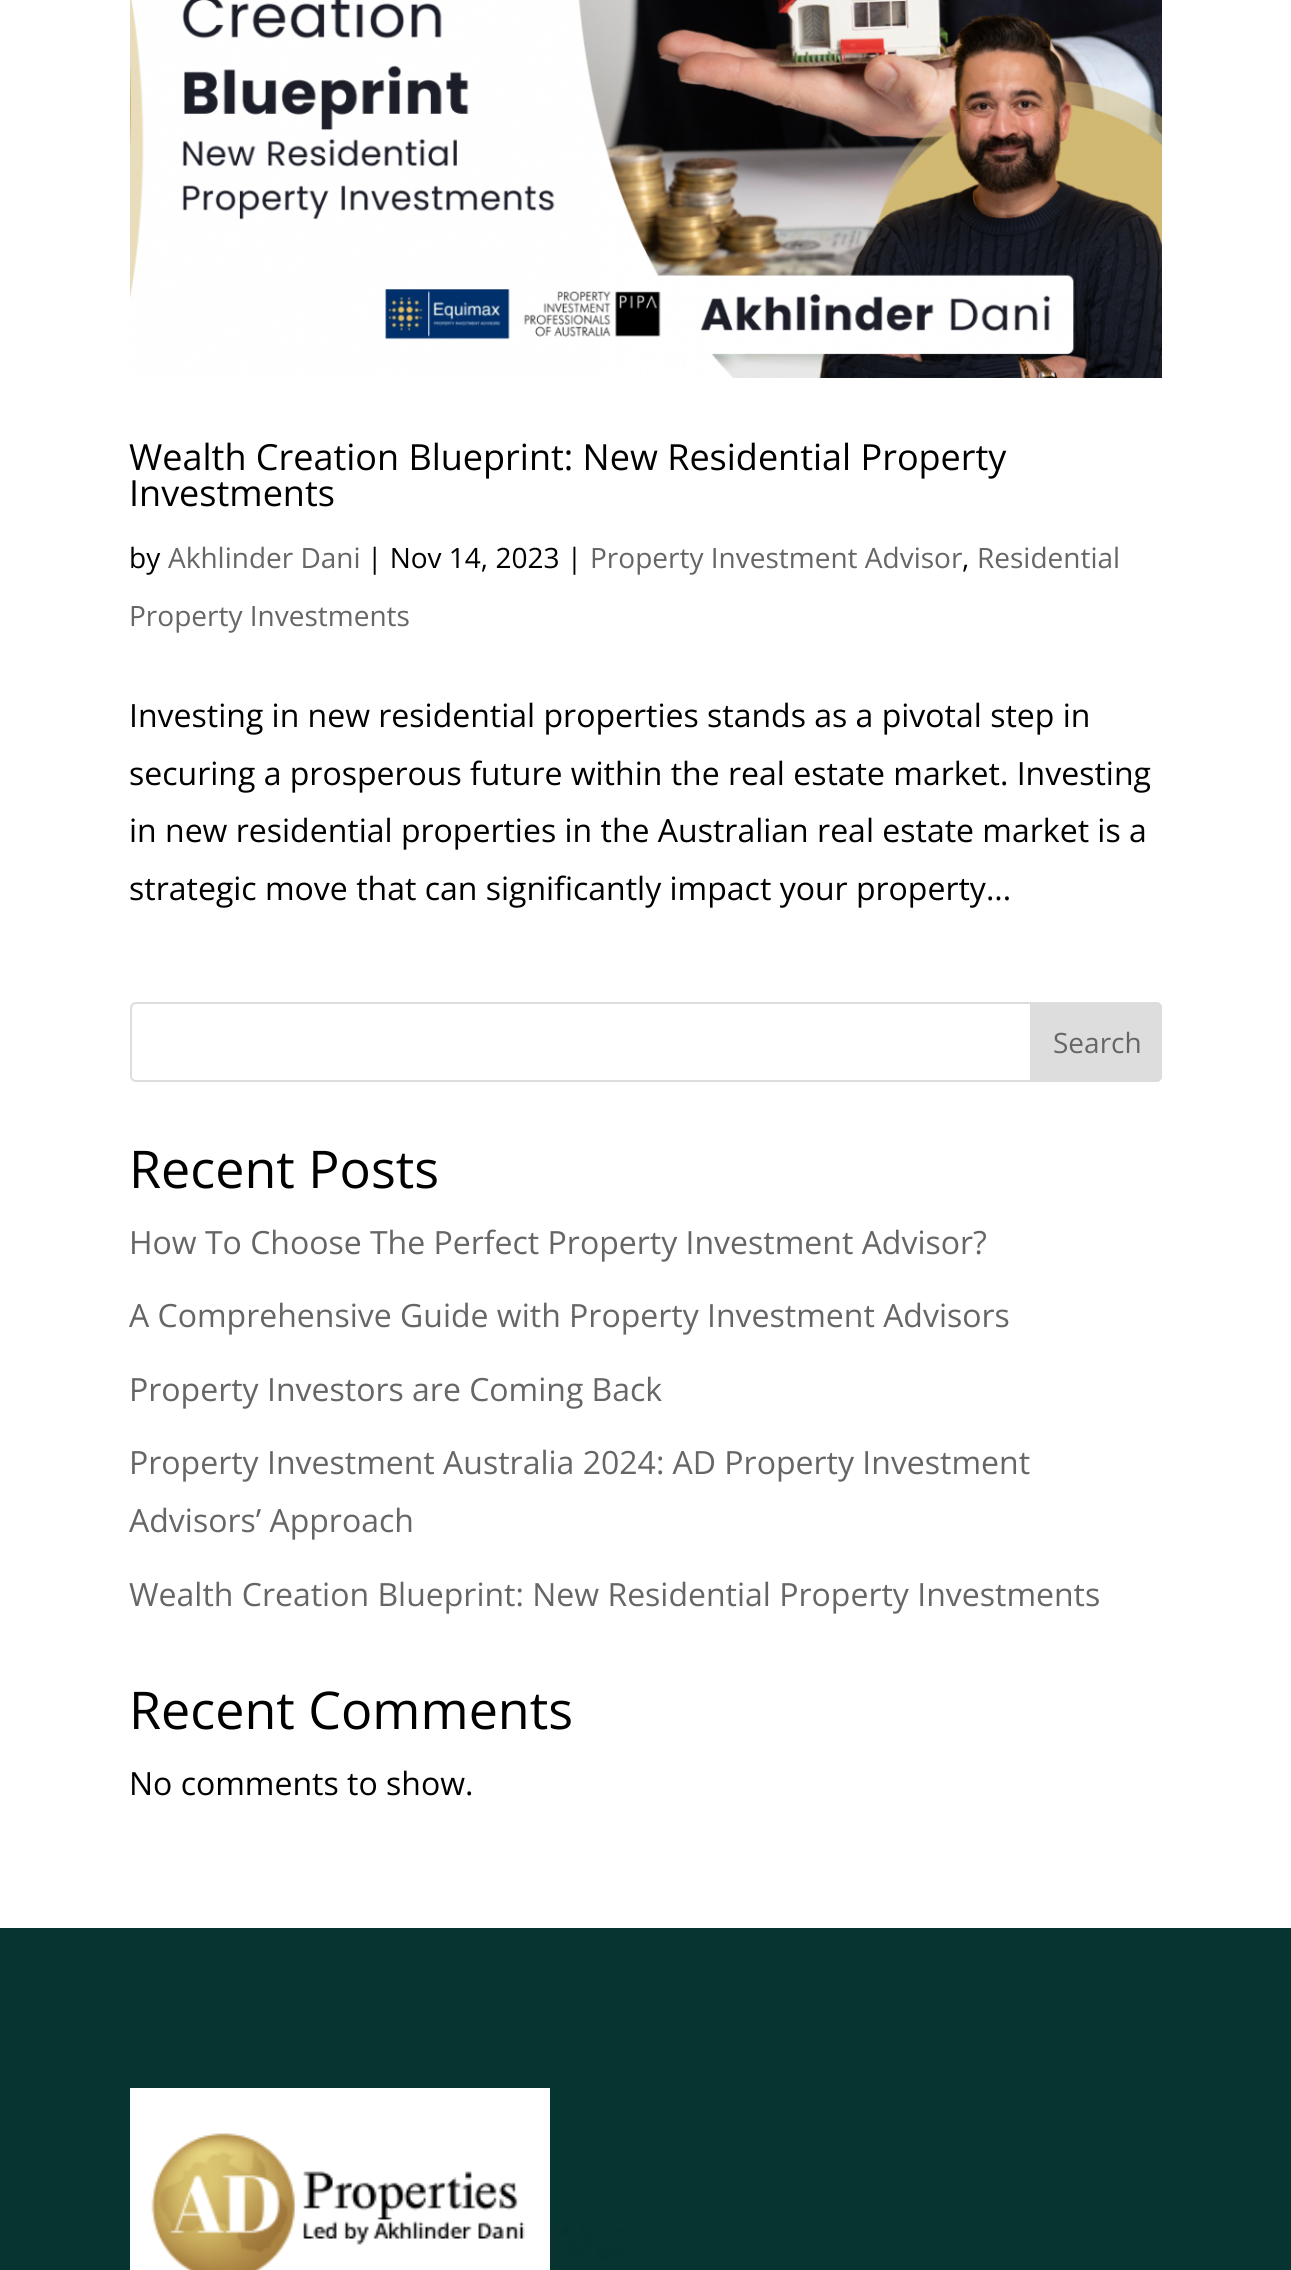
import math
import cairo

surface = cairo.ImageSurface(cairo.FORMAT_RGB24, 1291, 2270)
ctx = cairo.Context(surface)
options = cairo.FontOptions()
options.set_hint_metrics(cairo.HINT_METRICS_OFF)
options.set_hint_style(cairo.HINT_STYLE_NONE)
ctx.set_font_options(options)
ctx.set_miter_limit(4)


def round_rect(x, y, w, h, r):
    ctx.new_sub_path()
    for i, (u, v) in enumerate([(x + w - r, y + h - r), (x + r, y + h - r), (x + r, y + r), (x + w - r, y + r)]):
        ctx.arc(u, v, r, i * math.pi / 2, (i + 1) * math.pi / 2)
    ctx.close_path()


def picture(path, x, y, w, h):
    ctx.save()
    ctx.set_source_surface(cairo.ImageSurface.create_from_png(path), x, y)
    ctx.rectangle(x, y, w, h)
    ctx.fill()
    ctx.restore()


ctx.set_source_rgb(1, 1, 1)
ctx.paint()
picture("img1.png", 130, 0, 1032, 378)
ctx.select_font_face("Open Sans")
ctx.set_font_size(36)
ctx.set_source_rgb(0, 0, 0)
ctx.move_to(129, 470)
ctx.show_text("Wealth Creation Blueprint: New Residential Property")
ctx.move_to(129, 506)
ctx.show_text("Investments")
ctx.set_font_size(28)
ctx.move_to(129, 568)
ctx.show_text("by")
ctx.set_source_rgb(0.4, 0.4, 0.4)
ctx.move_to(168, 568)
ctx.show_text("Akhlinder Dani")
ctx.set_source_rgb(0, 0, 0)
ctx.move_to(367, 568)
ctx.show_text("| Nov 14, 2023 |")
ctx.set_source_rgb(0.4, 0.4, 0.4)
ctx.move_to(590, 568)
ctx.show_text("Property Investment Advisor")
ctx.set_source_rgb(0, 0, 0)
ctx.move_to(962, 568)
ctx.show_text(",")
ctx.set_source_rgb(0.4, 0.4, 0.4)
ctx.move_to(977, 568)
ctx.show_text("Residential")
ctx.move_to(129, 626)
ctx.show_text("Property Investments")
ctx.set_font_size(32)
ctx.set_source_rgb(0, 0, 0)
ctx.move_to(129, 727)
ctx.show_text("Investing in new residential properties stands as a pivotal step in")
ctx.move_to(129, 785)
ctx.show_text("securing a prosperous future within the real estate market. Investing")
ctx.move_to(129, 842)
ctx.show_text("in new residential properties in the Australian real estate market is a")
ctx.move_to(129, 900)
ctx.show_text("strategic move that can significantly impact your property...")
round_rect(131, 1003, 1030, 78, 5)
ctx.set_source_rgb(0.867, 0.867, 0.867)
ctx.stroke()
ctx.new_path()
ctx.move_to(1031, 1003)
ctx.line_to(1156, 1003)
ctx.curve_to(1159, 1003, 1161, 1005, 1161, 1008)
ctx.line_to(1161, 1076)
ctx.curve_to(1161, 1079, 1159, 1081, 1156, 1081)
ctx.line_to(1031, 1081)
ctx.close_path()
ctx.fill_preserve()
ctx.stroke()
ctx.set_font_size(28)
ctx.set_source_rgb(0.4, 0.4, 0.4)
ctx.move_to(1053, 1053)
ctx.show_text("Search")
ctx.set_font_size(52)
ctx.set_source_rgb(0, 0, 0)
ctx.move_to(129, 1188)
ctx.show_text("Recent Posts")
ctx.set_font_size(32)
ctx.set_source_rgb(0.4, 0.4, 0.4)
ctx.move_to(129, 1254)
ctx.show_text("How To Choose The Perfect Property Investment Advisor?")
ctx.move_to(129, 1327)
ctx.show_text("A Comprehensive Guide with Property Investment Advisors")
ctx.move_to(129, 1401)
ctx.show_text("Property Investors are Coming Back")
ctx.move_to(129, 1474)
ctx.show_text("Property Investment Australia 2024: AD Property Investment")
ctx.move_to(129, 1532)
ctx.show_text("Advisors’ Approach")
ctx.move_to(129, 1606)
ctx.show_text("Wealth Creation Blueprint: New Residential Property Investments")
ctx.set_font_size(52)
ctx.set_source_rgb(0, 0, 0)
ctx.move_to(129, 1729)
ctx.show_text("Recent Comments")
ctx.set_font_size(32)
ctx.move_to(129, 1795)
ctx.show_text("No comments to show.")
ctx.set_source_rgb(0.027, 0.204, 0.188)
ctx.rectangle(0, 1928, 1291, 342)
ctx.fill()
picture("img2.png", 550, 2228, 76, 34)
ctx.set_source_rgb(1, 1, 1)
ctx.rectangle(130, 2088, 420, 182)
ctx.fill()
picture("img3.png", 151, 2133, 374, 137)
surface.write_to_png("page.png")
